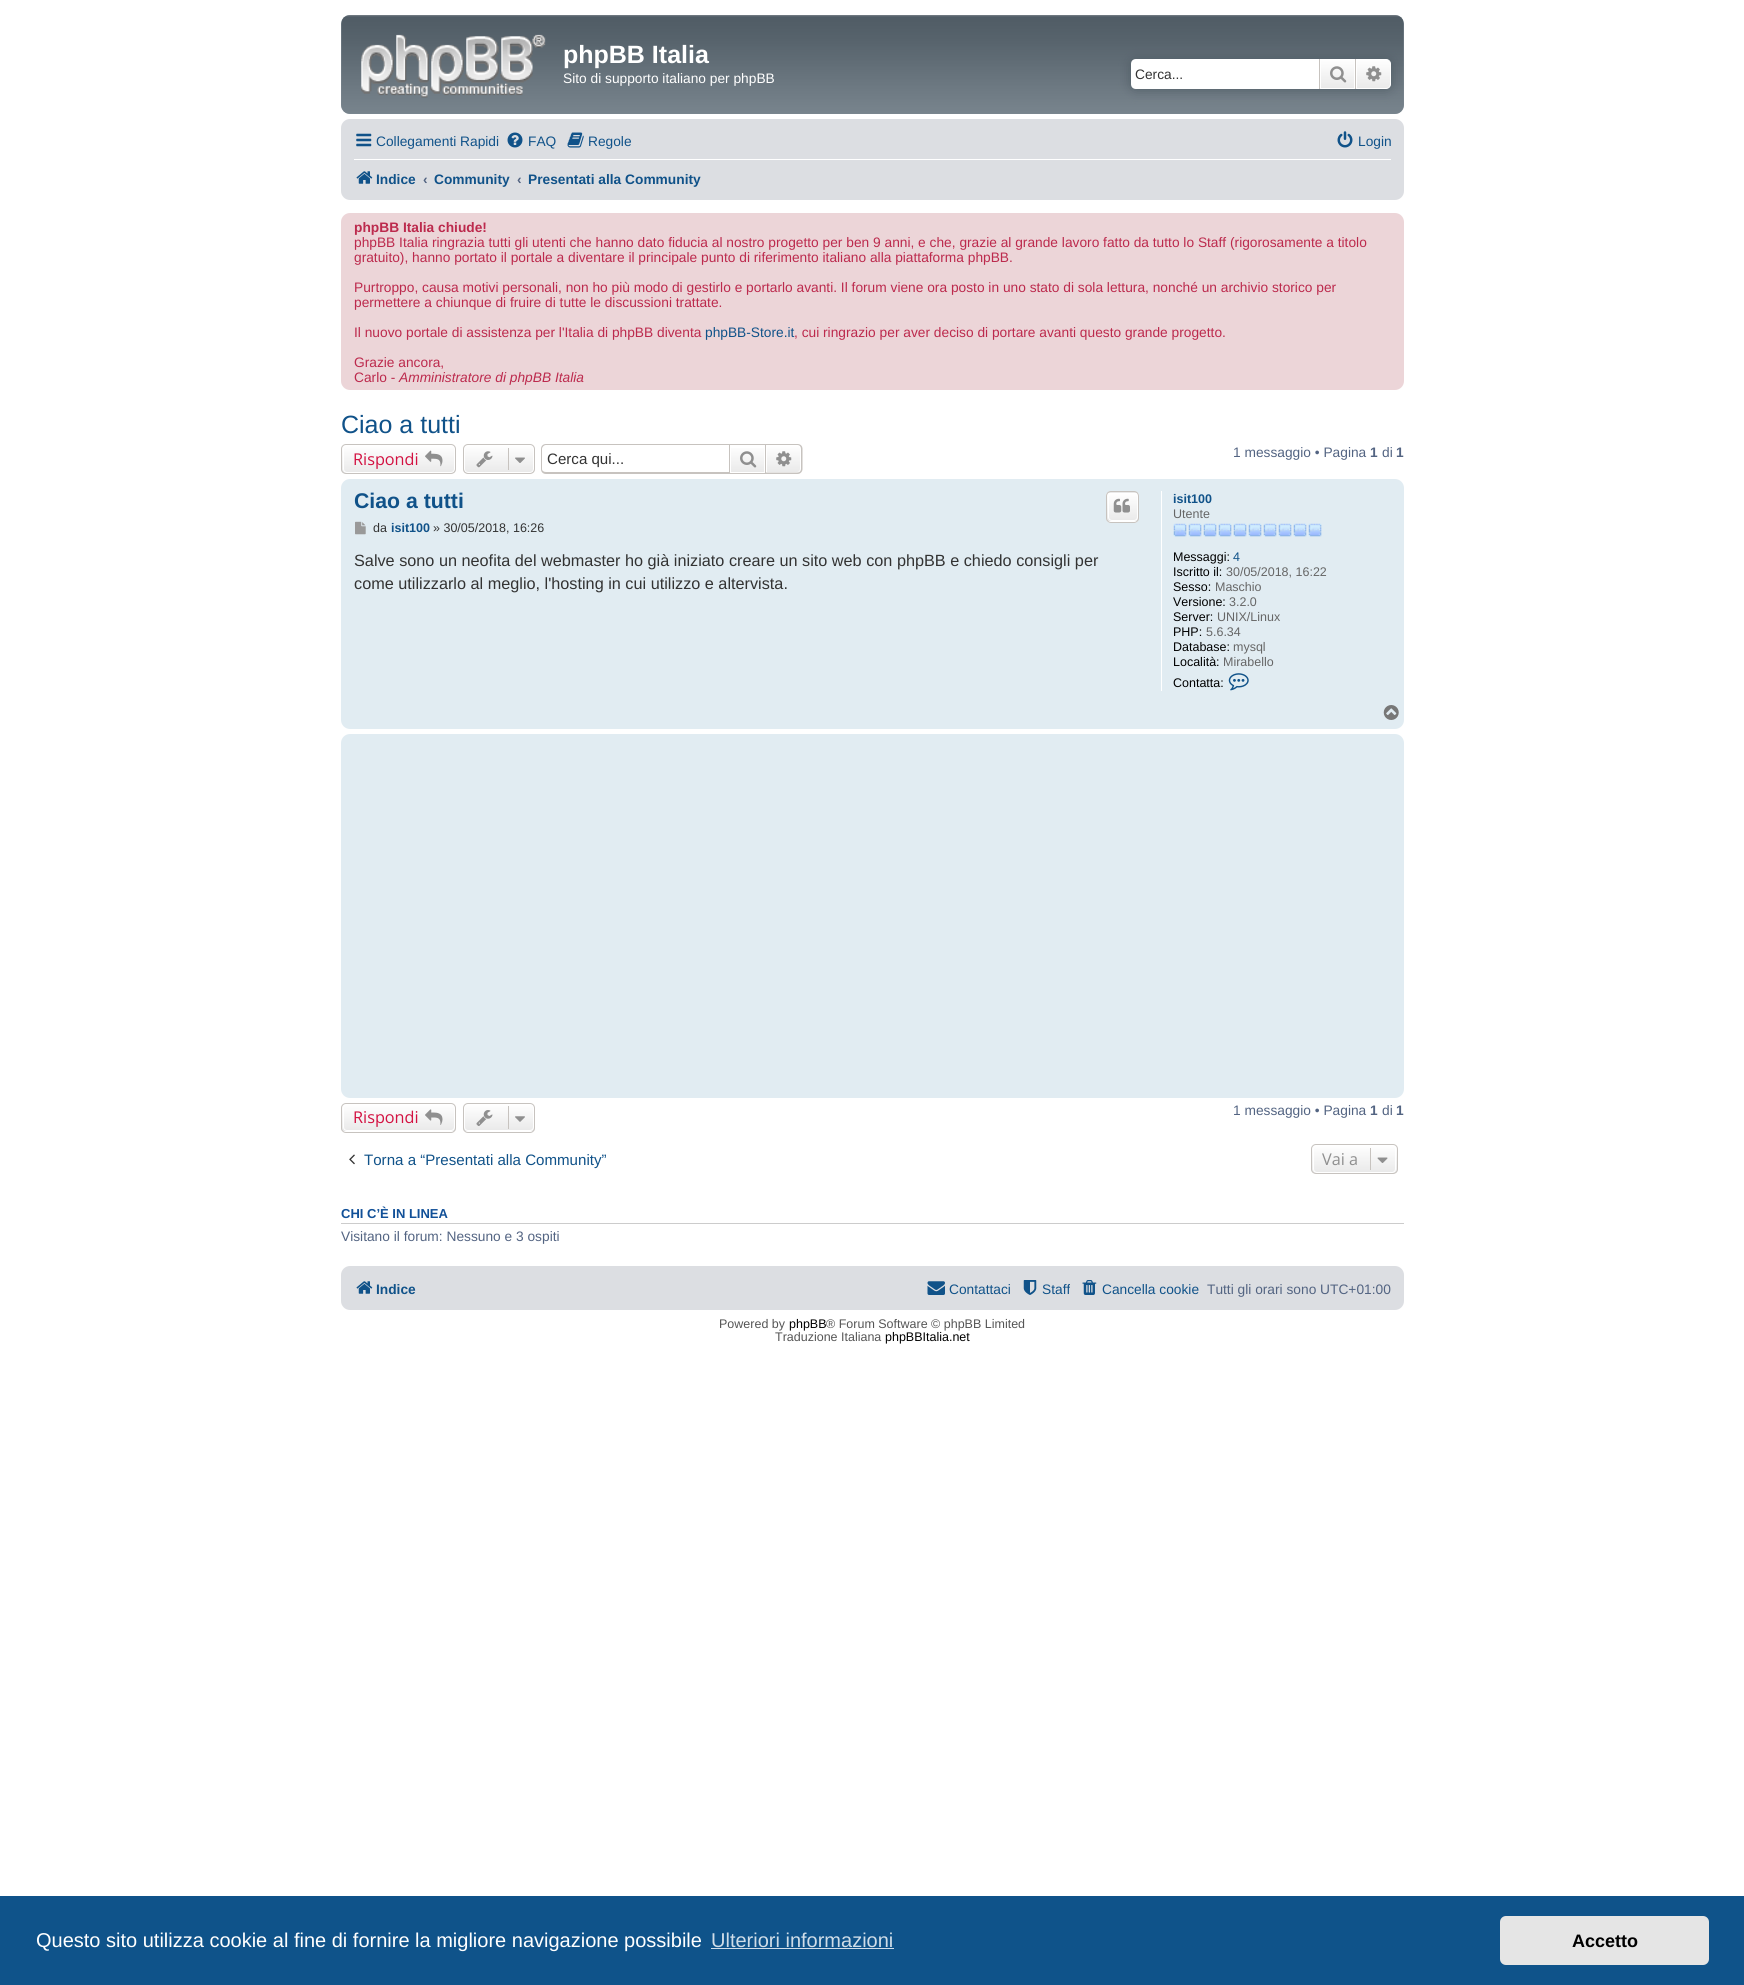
import math
import cairo

surface = cairo.ImageSurface(cairo.FORMAT_RGB24, 1744, 1985)
ctx = cairo.Context(surface)
options = cairo.FontOptions()
options.set_hint_metrics(cairo.HINT_METRICS_OFF)
options.set_hint_style(cairo.HINT_STYLE_NONE)
ctx.set_font_options(options)
ctx.set_miter_limit(4)


def round_rect(x, y, w, h, r):
    ctx.new_sub_path()
    for i, (u, v) in enumerate([(x + w - r, y + h - r), (x + r, y + h - r), (x + r, y + r), (x + w - r, y + r)]):
        ctx.arc(u, v, r, i * math.pi / 2, (i + 1) * math.pi / 2)
    ctx.close_path()


def shadow(x, y, w, h, r, blur, alpha):
    ctx.push_group_with_content(cairo.CONTENT_ALPHA)
    ctx.set_operator(cairo.OPERATOR_SOURCE)
    for i in range(15, -16, -2):
        e = blur * i / 6
        if min(w, h) + 2 * e > 0:
            ctx.set_source_rgba(0, 0, 0, alpha * math.erfc((i - 1) / 8.5) / 2)
            round_rect(x - e, y - e, w + 2 * e, h + 2 * e, max(0, min(r + e + blur * .6, min(w, h) / 2 + e)))
            ctx.fill()
    ctx.mask(ctx.pop_group())


def picture(path, x, y, w, h):
    ctx.save()
    ctx.set_source_surface(cairo.ImageSurface.create_from_png(path), x, y)
    ctx.rectangle(x, y, w, h)
    ctx.fill()
    ctx.restore()


ctx.set_source_rgb(1, 1, 1)
ctx.paint()
ctx.set_source_rgb(0.486, 0.533, 0.569)
round_rect(341, 15, 1063, 99, 9)
ctx.fill()
picture("img1.png", 341, 15, 1063, 99)
picture("img2.png", 361, 34, 185, 64)
ctx.select_font_face("Liberation Sans", cairo.FONT_SLANT_NORMAL, cairo.FONT_WEIGHT_BOLD)
ctx.set_font_size(25)
ctx.set_source_rgb(1, 1, 1)
ctx.move_to(563, 63)
ctx.show_text("phpBB Italia")
ctx.select_font_face("Liberation Sans")
ctx.set_font_size(13.75)
ctx.move_to(563, 83)
ctx.show_text("Sito di supporto italiano per phpBB")
ctx.set_source_rgb(0.314, 0.361, 0.396)
shadow(1131, 59, 260, 30, 5, 6, 1)
ctx.set_source_rgb(1, 1, 1)
ctx.new_path()
ctx.move_to(1136, 59)
ctx.line_to(1319, 59)
ctx.line_to(1319, 89)
ctx.line_to(1136, 89)
ctx.curve_to(1133, 89, 1131, 87, 1131, 84)
ctx.line_to(1131, 64)
ctx.curve_to(1131, 61, 1133, 59, 1136, 59)
ctx.close_path()
ctx.fill()
ctx.set_source_rgb(0.2, 0.2, 0.2)
ctx.move_to(1135, 79)
ctx.show_text("Cerca...")
gradient = cairo.LinearGradient(1338, 59, 1338, 89)
gradient.add_color_stop_rgba(0, 1, 1, 1, 1)
gradient.add_color_stop_rgba(1, 0.914, 0.914, 0.914, 1)
ctx.set_source(gradient)
ctx.rectangle(1321, 60, 33, 28)
ctx.fill()
ctx.rectangle(1320.5, 59.5, 34, 29)
ctx.set_source_rgb(1, 1, 1)
ctx.set_line_width(1)
ctx.stroke()
ctx.set_source_rgb(0.78, 0.765, 0.749)
ctx.rectangle(1355, 59, 1, 30)
ctx.fill()
ctx.rectangle(1319, 59, 1, 30)
ctx.fill()
picture("img3.png", 1330, 66, 17, 17)
gradient = cairo.LinearGradient(1374, 59, 1374, 89)
gradient.add_color_stop_rgba(0, 1, 1, 1, 1)
gradient.add_color_stop_rgba(1, 0.914, 0.914, 0.914, 1)
ctx.set_source(gradient)
ctx.new_path()
ctx.move_to(1356.5, 59.5)
ctx.line_to(1386, 59.5)
ctx.curve_to(1388.5, 59.5, 1390.5, 61.5, 1390.5, 64)
ctx.line_to(1390.5, 84)
ctx.curve_to(1390.5, 86.5, 1388.5, 88.5, 1386, 88.5)
ctx.line_to(1356.5, 88.5)
ctx.close_path()
ctx.fill_preserve()
ctx.set_source_rgb(1, 1, 1)
ctx.stroke()
picture("img4.png", 1366, 66, 16, 16)
ctx.set_source_rgb(0.863, 0.871, 0.886)
round_rect(341, 119, 1063, 81, 9)
ctx.fill()
picture("img5.png", 356, 133, 16, 14)
ctx.set_source_rgb(0.063, 0.322, 0.537)
ctx.move_to(376, 146)
ctx.show_text("Collegamenti Rapidi")
picture("img6.png", 507, 132, 16, 16)
ctx.move_to(528, 146)
ctx.show_text("FAQ")
picture("img7.png", 567, 132, 17, 16)
ctx.move_to(588, 146)
ctx.show_text("Regole")
picture("img8.png", 1337, 131, 16, 17)
ctx.move_to(1358, 146)
ctx.show_text("Login")
ctx.set_source_rgb(1, 1, 1)
ctx.rectangle(354, 159, 1037, 1)
ctx.fill()
picture("img9.png", 356, 171, 17, 13)
ctx.select_font_face("Liberation Sans", cairo.FONT_SLANT_NORMAL, cairo.FONT_WEIGHT_BOLD)
ctx.set_source_rgb(0.063, 0.322, 0.537)
ctx.move_to(376, 184)
ctx.show_text("Indice")
ctx.set_source_rgb(0.325, 0.392, 0.51)
ctx.move_to(423, 184)
ctx.show_text("‹")
ctx.set_source_rgb(0.063, 0.322, 0.537)
ctx.move_to(434, 184)
ctx.show_text("Community")
ctx.set_source_rgb(0.325, 0.392, 0.51)
ctx.move_to(517, 184)
ctx.show_text("‹")
ctx.set_source_rgb(0.063, 0.322, 0.537)
ctx.move_to(528, 184)
ctx.show_text("Presentati alla Community")
ctx.set_source_rgb(0.925, 0.835, 0.847)
round_rect(341, 213, 1063, 177, 9)
ctx.fill()
ctx.set_source_rgb(0.737, 0.165, 0.302)
ctx.move_to(354, 232)
ctx.show_text("phpBB Italia chiude!")
ctx.select_font_face("Liberation Sans")
ctx.move_to(354, 247)
ctx.show_text("phpBB Italia ringrazia tutti gli utenti che hanno dato fiducia al nostro progetto per ben 9 anni, e che, grazie al grande lavoro fatto da tutto lo Staff (rigorosamente a titolo")
ctx.move_to(354, 262)
ctx.show_text("gratuito), hanno portato il portale a diventare il principale punto di riferimento italiano alla piattaforma phpBB.")
ctx.move_to(354, 292)
ctx.show_text("Purtroppo, causa motivi personali, non ho più modo di gestirlo e portarlo avanti. Il forum viene ora posto in uno stato di sola lettura, nonché un archivio storico per")
ctx.move_to(354, 307)
ctx.show_text("permettere a chiunque di fruire di tutte le discussioni trattate.")
ctx.move_to(354, 337)
ctx.show_text("Il nuovo portale di assistenza per l'Italia di phpBB diventa")
ctx.set_source_rgb(0.063, 0.322, 0.537)
ctx.move_to(705, 337)
ctx.show_text("phpBB-Store.it")
ctx.set_source_rgb(0.737, 0.165, 0.302)
ctx.move_to(794, 337)
ctx.show_text(", cui ringrazio per aver deciso di portare avanti questo grande progetto.")
ctx.move_to(354, 367)
ctx.show_text("Grazie ancora,")
ctx.move_to(354, 382)
ctx.show_text("Carlo -")
ctx.select_font_face("Liberation Sans", cairo.FONT_SLANT_ITALIC)
ctx.move_to(399, 382)
ctx.show_text("Amministratore di phpBB Italia")
ctx.select_font_face("Liberation Sans")
ctx.set_font_size(25)
ctx.set_source_rgb(0.063, 0.322, 0.537)
ctx.move_to(341, 433)
ctx.show_text("Ciao a tutti")
ctx.save()
round_rect(341, 444, 115, 30, 5)
ctx.clip()
gradient = cairo.LinearGradient(399, 445, 399, 473)
gradient.add_color_stop_rgba(0, 1, 1, 1, 1)
gradient.add_color_stop_rgba(1, 0.914, 0.914, 0.914, 1)
ctx.set_source(gradient)
ctx.rectangle(341, 445, 115, 28)
ctx.fill()
ctx.restore()
round_rect(343.5, 445.5, 111, 27, 3.5)
ctx.set_source_rgb(1, 1, 1)
ctx.stroke()
round_rect(341.5, 444.5, 114, 29, 4.5)
ctx.set_source_rgb(0.78, 0.765, 0.749)
ctx.stroke()
ctx.select_font_face("Open Sans")
ctx.set_font_size(16.25)
ctx.set_source_rgb(0.827, 0.067, 0.255)
ctx.move_to(353, 465)
ctx.show_text("Rispondi")
picture("img10.png", 425, 450, 18, 17)
ctx.save()
round_rect(463, 444, 72, 30, 5)
ctx.clip()
gradient = cairo.LinearGradient(499, 445, 499, 473)
gradient.add_color_stop_rgba(0, 1, 1, 1, 1)
gradient.add_color_stop_rgba(1, 0.914, 0.914, 0.914, 1)
ctx.set_source(gradient)
ctx.rectangle(463, 445, 72, 28)
ctx.fill()
ctx.restore()
round_rect(464.5, 445.5, 69, 27, 3.5)
ctx.set_source_rgb(1, 1, 1)
ctx.stroke()
round_rect(463.5, 444.5, 71, 29, 4.5)
ctx.set_source_rgb(0.78, 0.765, 0.749)
ctx.stroke()
picture("img11.png", 476, 451, 17, 17)
ctx.rectangle(508, 448, 1, 22)
ctx.fill()
picture("img12.png", 515, 457, 10, 6)
ctx.set_fill_rule(cairo.FILL_RULE_EVEN_ODD)
ctx.new_path()
ctx.move_to(546, 444)
ctx.line_to(729, 444)
ctx.line_to(729, 474)
ctx.line_to(546, 474)
ctx.curve_to(543, 474, 541, 472, 541, 469)
ctx.line_to(541, 449)
ctx.curve_to(541, 446, 543, 444, 546, 444)
ctx.close_path()
ctx.move_to(546, 445)
ctx.line_to(729, 445)
ctx.line_to(729, 472)
ctx.line_to(546, 472)
ctx.curve_to(544, 472, 542, 471, 542, 469)
ctx.line_to(542, 449)
ctx.curve_to(542, 447, 544, 445, 546, 445)
ctx.close_path()
ctx.fill()
ctx.select_font_face("Liberation Sans")
ctx.set_font_size(15.1)
ctx.set_source_rgb(0.2, 0.2, 0.2)
ctx.move_to(547, 464)
ctx.show_text("Cerca qui...")
gradient = cairo.LinearGradient(748, 445, 748, 473)
gradient.add_color_stop_rgba(0, 1, 1, 1, 1)
gradient.add_color_stop_rgba(1, 0.914, 0.914, 0.914, 1)
ctx.set_source(gradient)
ctx.rectangle(731, 448, 33, 24)
ctx.fill()
ctx.rectangle(729.5, 444.5, 36, 29)
ctx.set_source_rgb(0.78, 0.765, 0.749)
ctx.stroke()
picture("img13.png", 740, 451, 17, 17)
gradient = cairo.LinearGradient(784, 445, 784, 473)
gradient.add_color_stop_rgba(0, 1, 1, 1, 1)
gradient.add_color_stop_rgba(1, 0.914, 0.914, 0.914, 1)
ctx.set_source(gradient)
ctx.new_path()
ctx.move_to(766.5, 445.5)
ctx.line_to(797, 445.5)
ctx.curve_to(799, 445.5, 800.5, 447, 800.5, 449)
ctx.line_to(800.5, 469)
ctx.curve_to(800.5, 471, 799, 472.5, 797, 472.5)
ctx.line_to(766.5, 472.5)
ctx.close_path()
ctx.fill_preserve()
ctx.set_source_rgb(1, 1, 1)
ctx.stroke()
ctx.set_source_rgb(0.78, 0.765, 0.749)
ctx.new_path()
ctx.move_to(766, 444)
ctx.line_to(797.5, 444)
ctx.curve_to(800.5, 444, 802.5, 446, 802.5, 449)
ctx.line_to(802.5, 469)
ctx.curve_to(802.5, 471.5, 800.5, 474, 797.5, 474)
ctx.line_to(766, 474)
ctx.close_path()
ctx.move_to(766, 445)
ctx.line_to(797.5, 445)
ctx.curve_to(799.5, 445, 801, 446.5, 801, 449)
ctx.line_to(801, 469)
ctx.curve_to(801, 471, 799.5, 472.5, 797.5, 472.5)
ctx.line_to(766, 472.5)
ctx.close_path()
ctx.fill()
picture("img14.png", 776, 451, 16, 16)
ctx.set_font_size(13.75)
ctx.set_source_rgb(0.325, 0.392, 0.51)
ctx.move_to(1233, 457)
ctx.show_text("1 messaggio • Pagina")
ctx.select_font_face("Liberation Sans", cairo.FONT_SLANT_NORMAL, cairo.FONT_WEIGHT_BOLD)
ctx.move_to(1370, 457)
ctx.show_text("1")
ctx.select_font_face("Liberation Sans")
ctx.move_to(1382, 457)
ctx.show_text("di")
ctx.select_font_face("Liberation Sans", cairo.FONT_SLANT_NORMAL, cairo.FONT_WEIGHT_BOLD)
ctx.move_to(1396, 457)
ctx.show_text("1")
ctx.set_source_rgb(0.882, 0.922, 0.949)
round_rect(341, 479, 1063, 250, 9)
ctx.fill()
ctx.set_font_size(21.25)
ctx.set_source_rgb(0.063, 0.322, 0.537)
ctx.move_to(354, 508)
ctx.show_text("Ciao a tutti")
ctx.save()
ctx.set_fill_rule(cairo.FILL_RULE_WINDING)
round_rect(1106, 491, 33, 32, 5)
ctx.clip()
gradient = cairo.LinearGradient(1123, 464, 1123, 493)
gradient.add_color_stop_rgba(0, 1, 1, 1, 1)
gradient.add_color_stop_rgba(1, 0.914, 0.914, 0.914, 1)
ctx.set_source(gradient)
ctx.rectangle(1106, 491, 33, 2)
ctx.fill()
gradient = cairo.LinearGradient(1123, 493, 1123, 521)
gradient.add_color_stop_rgba(0, 1, 1, 1, 1)
gradient.add_color_stop_rgba(1, 0.914, 0.914, 0.914, 1)
ctx.set_source(gradient)
ctx.rectangle(1106, 493, 33, 28)
ctx.fill()
gradient = cairo.LinearGradient(1123, 521, 1123, 550)
gradient.add_color_stop_rgba(0, 1, 1, 1, 1)
gradient.add_color_stop_rgba(1, 0.914, 0.914, 0.914, 1)
ctx.set_source(gradient)
ctx.rectangle(1106, 521, 33, 2)
ctx.fill()
ctx.restore()
round_rect(1108.5, 493.5, 29, 27, 3.5)
ctx.set_source_rgb(1, 1, 1)
ctx.stroke()
round_rect(1106.5, 491.5, 32, 31, 4.5)
ctx.set_source_rgb(0.78, 0.765, 0.749)
ctx.stroke()
picture("img15.png", 1113, 498, 17, 15)
picture("img16.png", 355, 521, 11, 14)
ctx.select_font_face("Liberation Sans")
ctx.set_font_size(12.5)
ctx.set_source_rgb(0.2, 0.2, 0.2)
ctx.move_to(373, 532)
ctx.show_text("da")
ctx.select_font_face("Liberation Sans", cairo.FONT_SLANT_NORMAL, cairo.FONT_WEIGHT_BOLD)
ctx.set_source_rgb(0.063, 0.322, 0.537)
ctx.move_to(391, 532)
ctx.show_text("isit100")
ctx.select_font_face("Liberation Sans")
ctx.set_source_rgb(0.2, 0.2, 0.2)
ctx.move_to(433, 532)
ctx.show_text("» 30/05/2018, 16:26")
ctx.set_font_size(16.25)
ctx.move_to(354, 566)
ctx.show_text("Salve sono un neofita del webmaster ho già iniziato creare un sito web con phpBB e chiedo consigli per")
ctx.move_to(354, 589)
ctx.show_text("come utilizzarlo al meglio, l'hosting in cui utilizzo e altervista.")
ctx.set_source_rgb(1, 1, 1)
ctx.rectangle(1161, 491, 1, 200)
ctx.fill()
ctx.select_font_face("Liberation Sans", cairo.FONT_SLANT_NORMAL, cairo.FONT_WEIGHT_BOLD)
ctx.set_font_size(12.5)
ctx.set_source_rgb(0.063, 0.322, 0.537)
ctx.move_to(1173, 503)
ctx.show_text("isit100")
ctx.select_font_face("Liberation Sans")
ctx.set_source_rgb(0.4, 0.4, 0.4)
ctx.move_to(1173, 518)
ctx.show_text("Utente")
picture("img17.png", 1173, 523, 149, 14)
ctx.set_source_rgb(0, 0, 0)
ctx.move_to(1173, 561)
ctx.show_text("Messaggi:")
ctx.set_source_rgb(0.063, 0.322, 0.537)
ctx.move_to(1233, 561)
ctx.show_text("4")
ctx.set_source_rgb(0, 0, 0)
ctx.move_to(1173, 576)
ctx.show_text("Iscritto il:")
ctx.set_source_rgb(0.4, 0.4, 0.4)
ctx.move_to(1226, 576)
ctx.show_text("30/05/2018, 16:22")
ctx.set_source_rgb(0, 0, 0)
ctx.move_to(1173, 591)
ctx.show_text("Sesso:")
ctx.set_source_rgb(0.4, 0.4, 0.4)
ctx.move_to(1215, 591)
ctx.show_text("Maschio")
ctx.set_source_rgb(0, 0, 0)
ctx.move_to(1173, 606)
ctx.show_text("Versione:")
ctx.set_source_rgb(0.4, 0.4, 0.4)
ctx.move_to(1229, 606)
ctx.show_text("3.2.0")
ctx.set_source_rgb(0, 0, 0)
ctx.move_to(1173, 621)
ctx.show_text("Server:")
ctx.set_source_rgb(0.4, 0.4, 0.4)
ctx.move_to(1217, 621)
ctx.show_text("UNIX/Linux")
ctx.set_source_rgb(0, 0, 0)
ctx.move_to(1173, 636)
ctx.show_text("PHP:")
ctx.set_source_rgb(0.4, 0.4, 0.4)
ctx.move_to(1206, 636)
ctx.show_text("5.6.34")
ctx.set_source_rgb(0, 0, 0)
ctx.move_to(1173, 651)
ctx.show_text("Database:")
ctx.set_source_rgb(0.4, 0.4, 0.4)
ctx.move_to(1233, 651)
ctx.show_text("mysql")
ctx.set_source_rgb(0, 0, 0)
ctx.move_to(1173, 666)
ctx.show_text("Località:")
ctx.set_source_rgb(0.4, 0.4, 0.4)
ctx.move_to(1223, 666)
ctx.show_text("Mirabello")
ctx.set_source_rgb(0, 0, 0)
ctx.move_to(1173, 687)
ctx.show_text("Contatta:")
picture("img18.png", 1228, 673, 21, 18)
picture("img19.png", 1383, 705, 16, 15)
ctx.set_source_rgb(0.882, 0.922, 0.949)
round_rect(341, 734, 1063, 364, 9)
ctx.fill()
ctx.save()
ctx.set_fill_rule(cairo.FILL_RULE_WINDING)
round_rect(341, 1103, 115, 30, 5)
ctx.clip()
gradient = cairo.LinearGradient(399, 1104, 399, 1131)
gradient.add_color_stop_rgba(0, 1, 1, 1, 1)
gradient.add_color_stop_rgba(1, 0.914, 0.914, 0.914, 1)
ctx.set_source(gradient)
ctx.rectangle(341, 1104, 115, 27)
ctx.fill()
ctx.restore()
round_rect(343.5, 1104.5, 111, 26, 3.5)
ctx.set_source_rgb(1, 1, 1)
ctx.stroke()
round_rect(341.5, 1103.5, 114, 29, 4.5)
ctx.set_source_rgb(0.78, 0.765, 0.749)
ctx.stroke()
ctx.select_font_face("Open Sans")
ctx.set_font_size(16.25)
ctx.set_source_rgb(0.827, 0.067, 0.255)
ctx.move_to(353, 1123)
ctx.show_text("Rispondi")
picture("img20.png", 425, 1109, 18, 16)
ctx.save()
ctx.set_fill_rule(cairo.FILL_RULE_WINDING)
round_rect(463, 1103, 72, 30, 5)
ctx.clip()
gradient = cairo.LinearGradient(499, 1104, 499, 1131)
gradient.add_color_stop_rgba(0, 1, 1, 1, 1)
gradient.add_color_stop_rgba(1, 0.914, 0.914, 0.914, 1)
ctx.set_source(gradient)
ctx.rectangle(463, 1104, 72, 27)
ctx.fill()
ctx.restore()
round_rect(464.5, 1104.5, 69, 26, 3.5)
ctx.set_source_rgb(1, 1, 1)
ctx.stroke()
round_rect(463.5, 1103.5, 71, 29, 4.5)
ctx.set_source_rgb(0.78, 0.765, 0.749)
ctx.stroke()
picture("img21.png", 476, 1110, 17, 16)
ctx.rectangle(508, 1106, 1, 23)
ctx.fill()
picture("img22.png", 515, 1116, 10, 6)
ctx.select_font_face("Liberation Sans")
ctx.set_font_size(13.75)
ctx.set_source_rgb(0.325, 0.392, 0.51)
ctx.move_to(1233, 1115)
ctx.show_text("1 messaggio • Pagina")
ctx.select_font_face("Liberation Sans", cairo.FONT_SLANT_NORMAL, cairo.FONT_WEIGHT_BOLD)
ctx.move_to(1370, 1115)
ctx.show_text("1")
ctx.select_font_face("Liberation Sans")
ctx.move_to(1382, 1115)
ctx.show_text("di")
ctx.select_font_face("Liberation Sans", cairo.FONT_SLANT_NORMAL, cairo.FONT_WEIGHT_BOLD)
ctx.move_to(1396, 1115)
ctx.show_text("1")
picture("img23.png", 349, 1154, 6, 11)
ctx.select_font_face("Liberation Sans")
ctx.set_font_size(15.1)
ctx.set_source_rgb(0.063, 0.322, 0.537)
ctx.move_to(364, 1165)
ctx.show_text("Torna a “Presentati alla Community”")
ctx.save()
ctx.set_fill_rule(cairo.FILL_RULE_WINDING)
round_rect(1311, 1144, 87, 30, 5)
ctx.clip()
gradient = cairo.LinearGradient(1354, 1145, 1354, 1173)
gradient.add_color_stop_rgba(0, 1, 1, 1, 1)
gradient.add_color_stop_rgba(1, 0.914, 0.914, 0.914, 1)
ctx.set_source(gradient)
ctx.rectangle(1311, 1145, 87, 28)
ctx.fill()
ctx.restore()
round_rect(1313.5, 1145.5, 82, 27, 3.5)
ctx.set_source_rgb(1, 1, 1)
ctx.stroke()
round_rect(1311.5, 1144.5, 86, 29, 4.5)
ctx.set_source_rgb(0.78, 0.765, 0.749)
ctx.stroke()
ctx.select_font_face("Open Sans")
ctx.set_font_size(16.25)
ctx.set_source_rgb(0.561, 0.561, 0.561)
ctx.move_to(1322, 1165)
ctx.show_text("Vai a")
ctx.set_source_rgb(0.78, 0.765, 0.749)
ctx.rectangle(1370, 1148, 1, 22)
ctx.fill()
picture("img24.png", 1377, 1157, 11, 6)
ctx.set_source_rgb(0.8, 0.8, 0.8)
ctx.rectangle(341, 1223, 1063, 1)
ctx.fill()
ctx.select_font_face("Liberation Sans", cairo.FONT_SLANT_NORMAL, cairo.FONT_WEIGHT_BOLD)
ctx.set_font_size(13)
ctx.set_source_rgb(0.067, 0.314, 0.596)
ctx.move_to(341, 1218)
ctx.show_text("CHI C’È IN LINEA")
ctx.select_font_face("Liberation Sans")
ctx.set_font_size(13.75)
ctx.set_source_rgb(0.325, 0.392, 0.51)
ctx.move_to(341, 1241)
ctx.show_text("Visitano il forum: Nessuno e 3 ospiti")
ctx.set_source_rgb(0.863, 0.871, 0.886)
round_rect(341, 1266, 1063, 44, 9)
ctx.fill()
picture("img9.png", 356, 1281, 17, 13)
ctx.select_font_face("Liberation Sans", cairo.FONT_SLANT_NORMAL, cairo.FONT_WEIGHT_BOLD)
ctx.set_source_rgb(0.063, 0.322, 0.537)
ctx.move_to(376, 1294)
ctx.show_text("Indice")
picture("img25.png", 927, 1281, 18, 14)
ctx.select_font_face("Liberation Sans")
ctx.move_to(949, 1294)
ctx.show_text("Contattaci")
picture("img26.png", 1023, 1280, 14, 15)
ctx.move_to(1042, 1294)
ctx.show_text("Staff")
picture("img27.png", 1082, 1280, 15, 15)
ctx.move_to(1102, 1294)
ctx.show_text("Cancella cookie")
ctx.set_source_rgb(0.325, 0.392, 0.51)
ctx.move_to(1207, 1294)
ctx.show_text("Tutti gli orari sono UTC+01:00")
ctx.set_font_size(12.5)
ctx.set_source_rgb(0.333, 0.333, 0.333)
ctx.move_to(719, 1328)
ctx.show_text("Powered by")
ctx.set_source_rgb(0, 0, 0)
ctx.move_to(789, 1328)
ctx.show_text("phpBB")
ctx.set_source_rgb(0.333, 0.333, 0.333)
ctx.move_to(826, 1328)
ctx.show_text("® Forum Software © phpBB Limited")
ctx.move_to(775, 1341)
ctx.show_text("Traduzione Italiana")
ctx.set_source_rgb(0, 0, 0)
ctx.move_to(885, 1341)
ctx.show_text("phpBBItalia.net")
ctx.set_source_rgb(0.059, 0.325, 0.541)
ctx.rectangle(0, 1896, 1744, 89)
ctx.fill()
ctx.set_font_size(20)
ctx.set_source_rgb(1, 1, 1)
ctx.move_to(36, 1947)
ctx.show_text("Questo sito utilizza cookie al fine di fornire la migliore navigazione possibile")
ctx.set_source_rgb(0.812, 0.867, 0.91)
ctx.move_to(711, 1947)
ctx.show_text("Ulteriori informazioni")
ctx.rectangle(711, 1948, 183, 1)
ctx.fill()
ctx.set_source_rgb(0.898, 0.898, 0.898)
round_rect(1500, 1916, 209, 49, 6)
ctx.fill()
ctx.select_font_face("Liberation Sans", cairo.FONT_SLANT_NORMAL, cairo.FONT_WEIGHT_BOLD)
ctx.set_font_size(18)
ctx.set_source_rgb(0, 0, 0)
ctx.move_to(1572, 1947)
ctx.show_text("Accetto")
surface.write_to_png("page.png")
